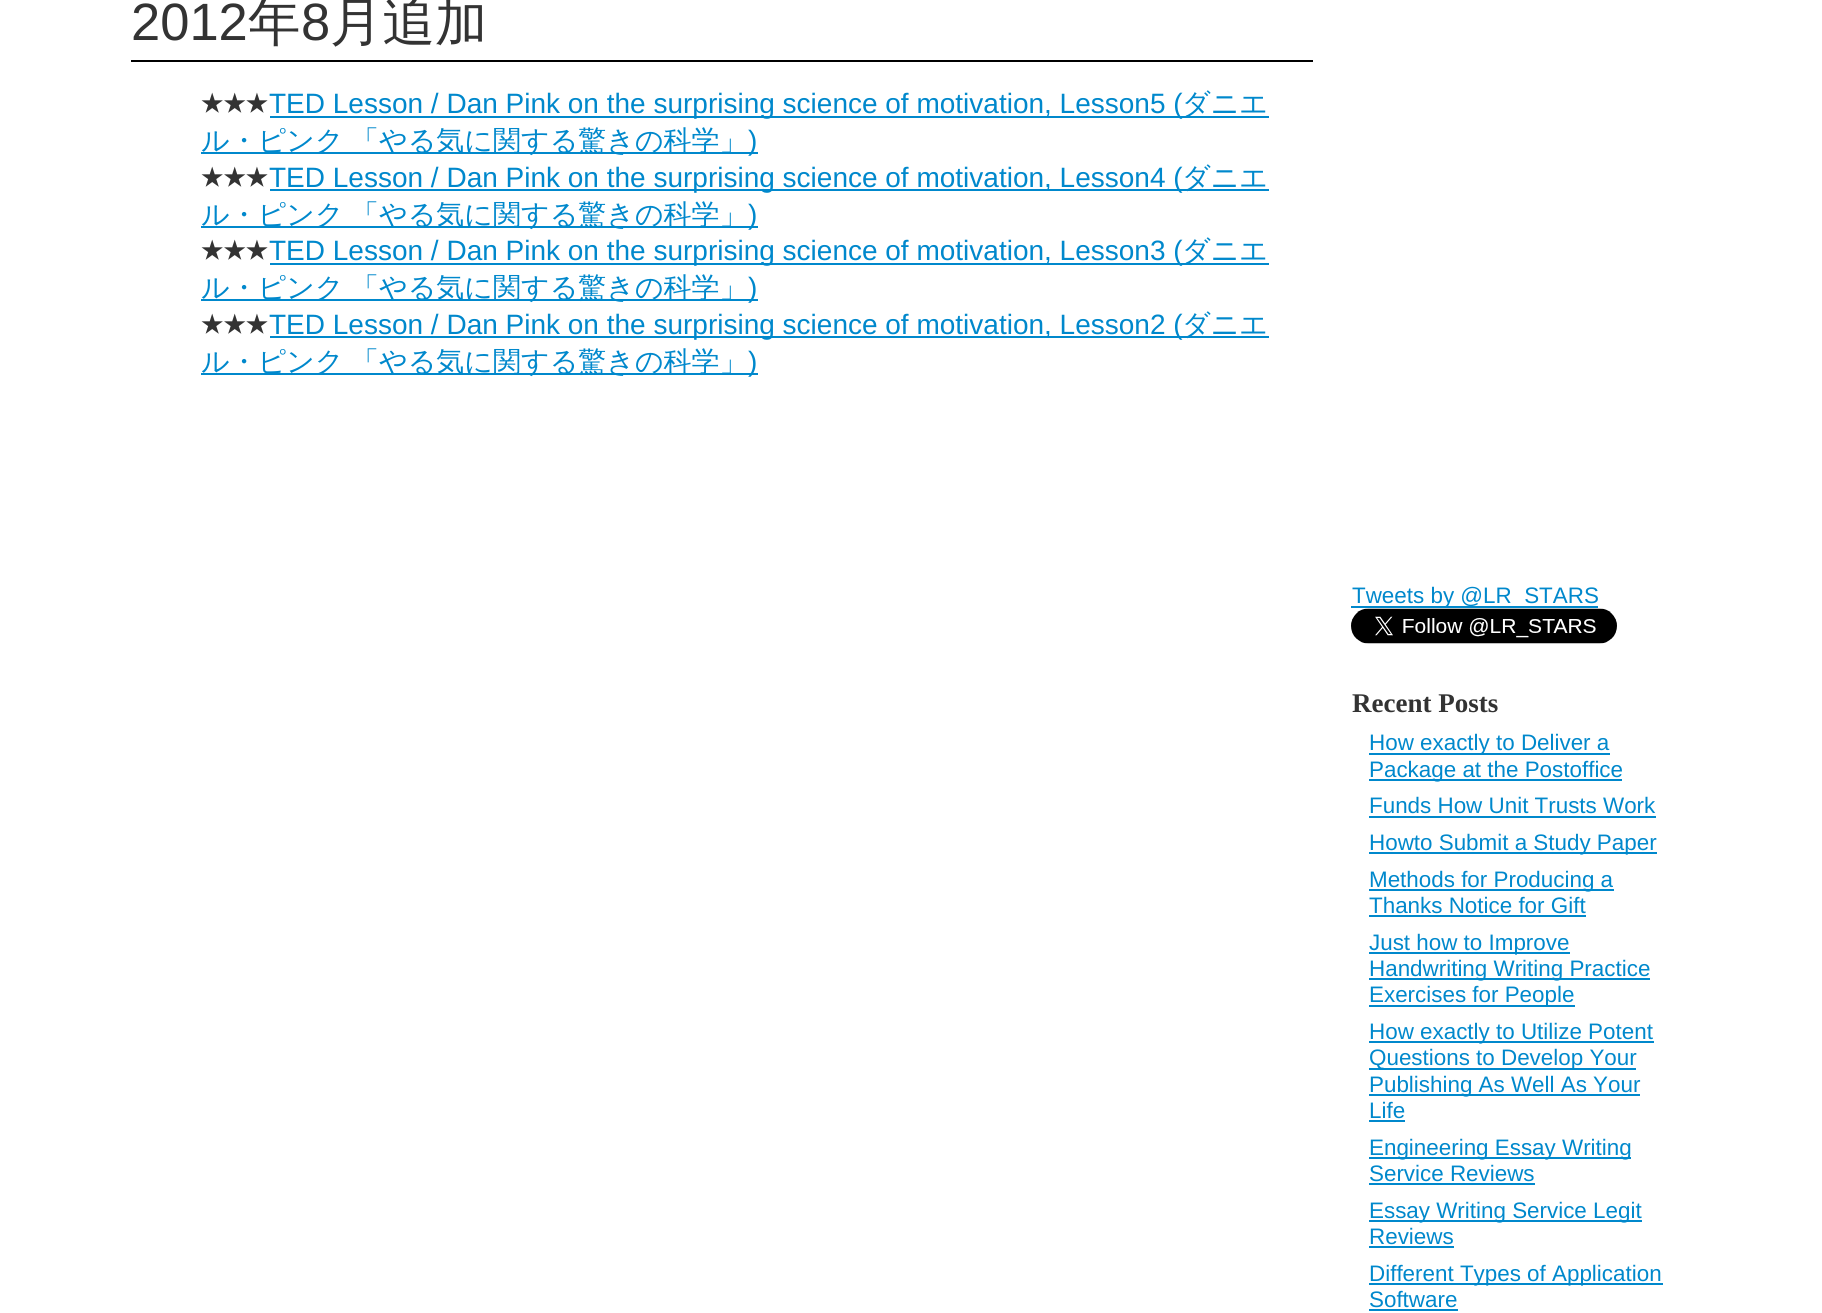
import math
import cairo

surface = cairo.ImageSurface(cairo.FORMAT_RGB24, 1822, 1313)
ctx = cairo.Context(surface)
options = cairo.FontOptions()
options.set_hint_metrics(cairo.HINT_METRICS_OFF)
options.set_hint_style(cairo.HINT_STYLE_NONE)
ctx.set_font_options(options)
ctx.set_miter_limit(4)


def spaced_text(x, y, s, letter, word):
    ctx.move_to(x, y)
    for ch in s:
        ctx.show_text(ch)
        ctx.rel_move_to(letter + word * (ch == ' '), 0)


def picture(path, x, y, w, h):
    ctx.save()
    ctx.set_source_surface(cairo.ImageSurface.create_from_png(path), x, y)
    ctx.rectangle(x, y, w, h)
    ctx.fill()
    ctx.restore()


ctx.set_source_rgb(1, 1, 1)
ctx.paint()
ctx.set_source_rgb(0, 0, 0)
ctx.rectangle(131, 60, 1182, 2)
ctx.fill()
ctx.select_font_face("Liberation Sans")
ctx.set_font_size(52.5)
ctx.set_source_rgb(0.2, 0.2, 0.2)
ctx.move_to(131, 40)
ctx.show_text("2012")
ctx.select_font_face("WenQuanYi Zen Hei Medium")
ctx.move_to(248, 40)
ctx.show_text("年")
ctx.select_font_face("Liberation Sans")
ctx.move_to(301, 40)
ctx.show_text("8")
ctx.select_font_face("WenQuanYi Zen Hei Medium")
ctx.move_to(330, 40)
ctx.show_text("月追加")
ctx.select_font_face("FreeSans")
ctx.set_font_size(28)
ctx.move_to(201, 113)
ctx.show_text("★★★")
ctx.set_source_rgb(0, 0.533, 0.8)
ctx.rectangle(270, 116, 999, 2)
ctx.fill()
ctx.select_font_face("Liberation Sans")
ctx.move_to(269, 113)
ctx.show_text("TED Lesson / Dan Pink on the surprising science of motivation, Lesson5 (")
ctx.select_font_face("WenQuanYi Zen Hei Medium")
ctx.move_to(1182, 113)
ctx.show_text("ダニエ")
ctx.rectangle(201, 152, 557, 2)
ctx.fill()
spaced_text(201, 150, "ル・ピンク 「やる気に関する驚きの科学」", 0, -1)
ctx.select_font_face("Liberation Sans")
ctx.move_to(748, 150)
ctx.show_text(")")
ctx.select_font_face("FreeSans")
ctx.set_source_rgb(0.2, 0.2, 0.2)
ctx.move_to(201, 187)
ctx.show_text("★★★")
ctx.set_source_rgb(0, 0.533, 0.8)
ctx.rectangle(270, 189, 999, 2)
ctx.fill()
ctx.select_font_face("Liberation Sans")
ctx.move_to(269, 187)
ctx.show_text("TED Lesson / Dan Pink on the surprising science of motivation, Lesson4 (")
ctx.select_font_face("WenQuanYi Zen Hei Medium")
ctx.move_to(1182, 187)
ctx.show_text("ダニエ")
ctx.rectangle(201, 226, 557, 2)
ctx.fill()
spaced_text(201, 224, "ル・ピンク 「やる気に関する驚きの科学」", 0, -1)
ctx.select_font_face("Liberation Sans")
ctx.move_to(748, 224)
ctx.show_text(")")
ctx.select_font_face("FreeSans")
ctx.set_source_rgb(0.2, 0.2, 0.2)
ctx.move_to(201, 260)
ctx.show_text("★★★")
ctx.set_source_rgb(0, 0.533, 0.8)
ctx.rectangle(270, 263, 999, 2)
ctx.fill()
ctx.select_font_face("Liberation Sans")
ctx.move_to(269, 260)
ctx.show_text("TED Lesson / Dan Pink on the surprising science of motivation, Lesson3 (")
ctx.select_font_face("WenQuanYi Zen Hei Medium")
ctx.move_to(1182, 260)
ctx.show_text("ダニエ")
ctx.rectangle(201, 299, 557, 2)
ctx.fill()
spaced_text(201, 297, "ル・ピンク 「やる気に関する驚きの科学」", 0, -1)
ctx.select_font_face("Liberation Sans")
ctx.move_to(748, 297)
ctx.show_text(")")
ctx.select_font_face("FreeSans")
ctx.set_source_rgb(0.2, 0.2, 0.2)
ctx.move_to(201, 334)
ctx.show_text("★★★")
ctx.set_source_rgb(0, 0.533, 0.8)
ctx.rectangle(270, 336, 999, 2)
ctx.fill()
ctx.select_font_face("Liberation Sans")
ctx.move_to(269, 334)
ctx.show_text("TED Lesson / Dan Pink on the surprising science of motivation, Lesson2 (")
ctx.select_font_face("WenQuanYi Zen Hei Medium")
ctx.move_to(1182, 334)
ctx.show_text("ダニエ")
ctx.rectangle(201, 373, 557, 2)
ctx.fill()
spaced_text(201, 371, "ル・ピンク 「やる気に関する驚きの科学」", 0, -1)
ctx.select_font_face("Liberation Sans")
ctx.move_to(748, 371)
ctx.show_text(")")
ctx.rectangle(1351, 606, 247, 2)
ctx.fill()
ctx.set_font_size(22.4)
ctx.move_to(1352, 603)
ctx.show_text("Tweets by @LR_STARS")
picture("img1.png", 1351, 608, 266, 36)
ctx.select_font_face("Liberation Serif", cairo.FONT_SLANT_NORMAL, cairo.FONT_WEIGHT_BOLD)
ctx.set_font_size(27)
ctx.set_source_rgb(0.2, 0.2, 0.2)
ctx.move_to(1352, 712)
ctx.show_text("Recent Posts")
ctx.set_source_rgb(0, 0.533, 0.8)
ctx.rectangle(1369, 753, 241, 2)
ctx.fill()
ctx.select_font_face("Liberation Sans")
ctx.set_font_size(22.4)
ctx.move_to(1369, 750)
ctx.show_text("How exactly to Deliver a")
ctx.rectangle(1369, 779, 253, 2)
ctx.fill()
ctx.move_to(1369, 777)
ctx.show_text("Package at the Postoffice")
ctx.move_to(1369, 813)
ctx.show_text("Funds How Unit Trusts Work")
ctx.rectangle(1369, 816, 287, 2)
ctx.fill()
ctx.rectangle(1369, 852, 288, 2)
ctx.fill()
ctx.move_to(1369, 850)
ctx.show_text("Howto Submit a Study Paper")
ctx.rectangle(1369, 889, 245, 2)
ctx.fill()
ctx.move_to(1369, 887)
ctx.show_text("Methods for Producing a")
ctx.move_to(1369, 913)
ctx.show_text("Thanks Notice for Gift")
ctx.rectangle(1369, 915, 217, 2)
ctx.fill()
ctx.rectangle(1369, 952, 201, 2)
ctx.fill()
ctx.move_to(1369, 950)
ctx.show_text("Just how to Improve")
ctx.rectangle(1369, 978, 281, 2)
ctx.fill()
ctx.move_to(1369, 976)
ctx.show_text("Handwriting Writing Practice")
ctx.rectangle(1369, 1005, 206, 2)
ctx.fill()
ctx.move_to(1369, 1002)
ctx.show_text("Exercises for People")
ctx.rectangle(1369, 1041, 285, 2)
ctx.fill()
ctx.move_to(1369, 1039)
ctx.show_text("How exactly to Utilize Potent")
ctx.rectangle(1369, 1068, 267, 2)
ctx.fill()
ctx.move_to(1369, 1065)
ctx.show_text("Questions to Develop Your")
ctx.rectangle(1369, 1094, 271, 2)
ctx.fill()
ctx.move_to(1369, 1092)
ctx.show_text("Publishing As Well As Your")
ctx.move_to(1369, 1118)
ctx.show_text("Life")
ctx.rectangle(1369, 1120, 36, 2)
ctx.fill()
ctx.rectangle(1369, 1157, 262, 2)
ctx.fill()
ctx.move_to(1369, 1155)
ctx.show_text("Engineering Essay Writing")
ctx.move_to(1369, 1181)
ctx.show_text("Service Reviews")
ctx.rectangle(1369, 1183, 166, 2)
ctx.fill()
ctx.rectangle(1369, 1220, 273, 2)
ctx.fill()
ctx.move_to(1369, 1218)
ctx.show_text("Essay Writing Service Legit")
ctx.move_to(1369, 1244)
ctx.show_text("Reviews")
ctx.rectangle(1369, 1246, 85, 2)
ctx.fill()
ctx.rectangle(1369, 1283, 294, 2)
ctx.fill()
ctx.move_to(1369, 1281)
ctx.show_text("Different Types of Application")
ctx.move_to(1369, 1307)
ctx.show_text("Software")
ctx.rectangle(1369, 1309, 89, 2)
ctx.fill()
surface.write_to_png("page.png")
